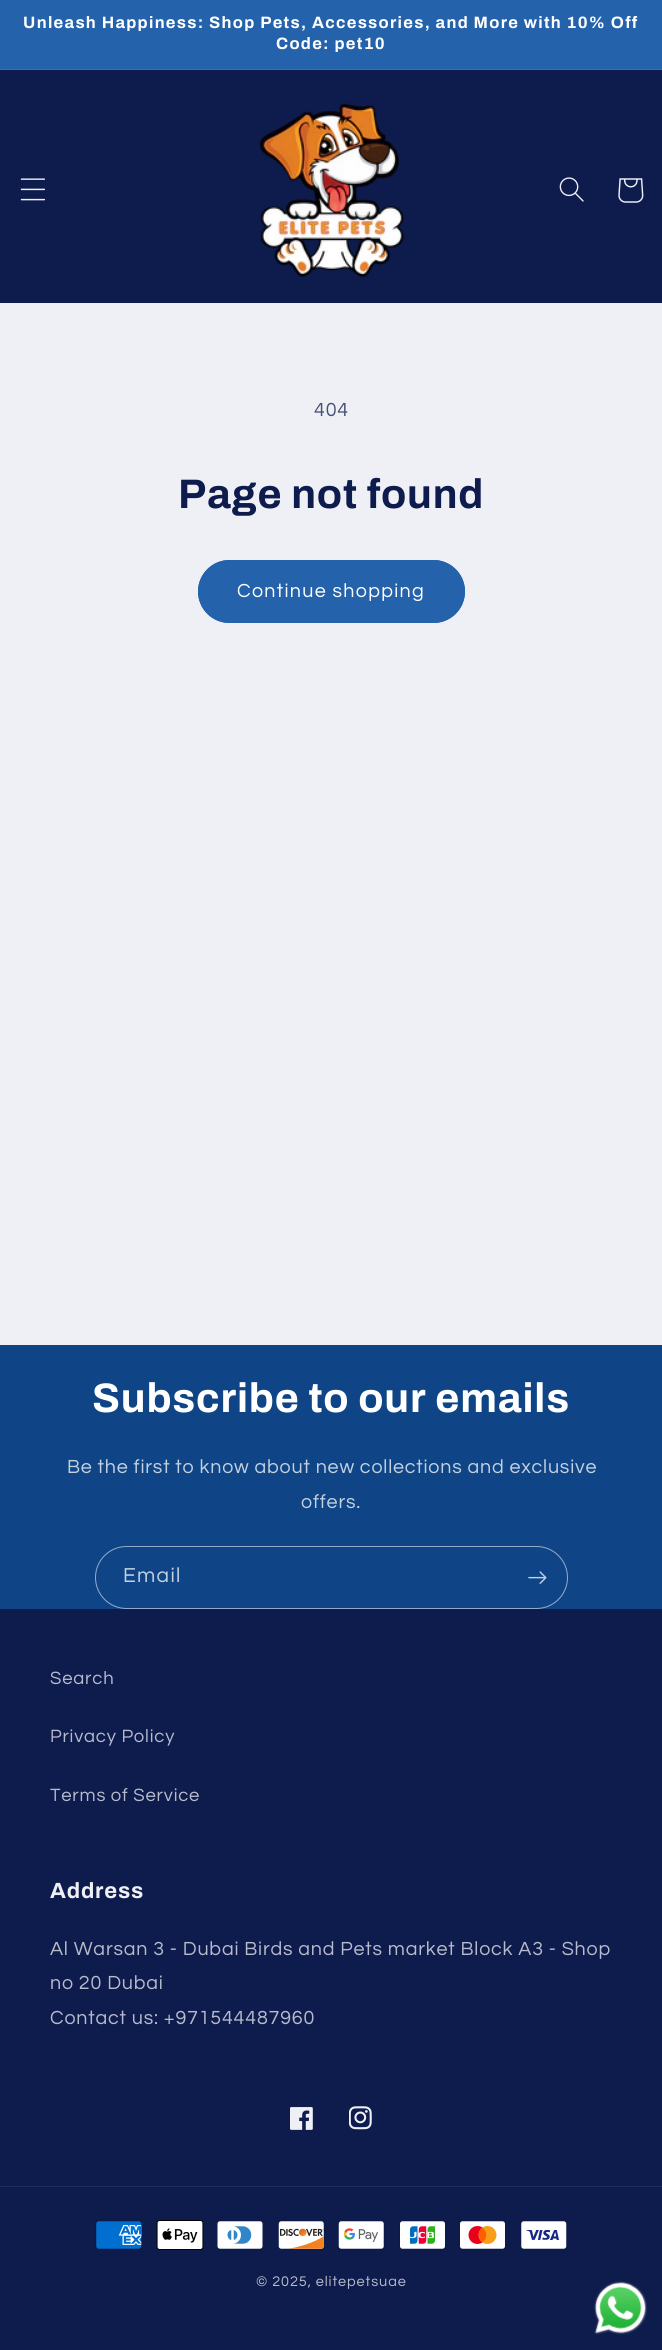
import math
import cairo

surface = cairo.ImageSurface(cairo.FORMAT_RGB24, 662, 2350)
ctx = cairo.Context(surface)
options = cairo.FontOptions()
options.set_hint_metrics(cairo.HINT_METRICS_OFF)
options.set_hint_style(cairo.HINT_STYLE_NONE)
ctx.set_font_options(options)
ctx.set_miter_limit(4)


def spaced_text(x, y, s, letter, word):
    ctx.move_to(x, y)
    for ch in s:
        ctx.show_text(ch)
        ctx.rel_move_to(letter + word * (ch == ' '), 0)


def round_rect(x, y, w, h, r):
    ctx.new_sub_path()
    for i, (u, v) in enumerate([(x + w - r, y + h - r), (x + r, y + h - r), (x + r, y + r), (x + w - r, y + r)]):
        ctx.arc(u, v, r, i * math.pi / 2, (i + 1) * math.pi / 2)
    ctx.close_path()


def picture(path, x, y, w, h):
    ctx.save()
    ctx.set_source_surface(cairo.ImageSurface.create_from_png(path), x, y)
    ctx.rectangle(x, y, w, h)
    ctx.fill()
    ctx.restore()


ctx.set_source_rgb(0.937, 0.941, 0.961)
ctx.paint()
ctx.set_source_rgb(0.141, 0.384, 0.675)
ctx.rectangle(0, 0, 662, 69)
ctx.fill()
ctx.set_source_rgb(0.212, 0.435, 0.702)
ctx.rectangle(0, 69, 662, 1)
ctx.fill()
ctx.select_font_face("Archivo", cairo.FONT_SLANT_NORMAL, cairo.FONT_WEIGHT_BOLD)
ctx.set_font_size(16.5)
ctx.set_source_rgb(1, 1, 1)
spaced_text(23, 28, "Unleash Happiness: Shop Pets, Accessories, and More with 10% Off", 1.3, 0)
spaced_text(276, 49, "Code: pet10", 1.3, 0)
ctx.set_source_rgb(0.055, 0.106, 0.302)
ctx.rectangle(0, 70, 662, 233)
ctx.fill()
picture("img1.png", 20, 178, 26, 23)
picture("img2.png", 259, 103, 145, 175)
picture("img3.png", 559, 177, 25, 25)
picture("img4.png", 618, 178, 26, 25)
ctx.select_font_face("Questrial")
ctx.set_font_size(19.7)
ctx.set_source_rgb(0.275, 0.314, 0.467)
spaced_text(314, 416, "404", 0.8, 0)
ctx.select_font_face("Archivo", cairo.FONT_SLANT_NORMAL, cairo.FONT_WEIGHT_BOLD)
ctx.set_font_size(41.25)
ctx.set_source_rgb(0.055, 0.106, 0.302)
spaced_text(178, 508, "Page not found", 0.8, 0)
ctx.set_source_rgb(0.141, 0.384, 0.675)
round_rect(198, 560, 267, 63, 31.5)
ctx.fill()
round_rect(198.5, 560.5, 266, 62, 31)
ctx.set_line_width(1)
ctx.stroke()
ctx.select_font_face("Questrial")
ctx.set_font_size(19.7)
ctx.set_source_rgb(1, 1, 1)
spaced_text(237, 597, "Continue shopping", 1.3, 0)
ctx.set_source_rgb(0.059, 0.271, 0.525)
ctx.rectangle(0, 1345, 662, 264)
ctx.fill()
ctx.select_font_face("Archivo", cairo.FONT_SLANT_NORMAL, cairo.FONT_WEIGHT_BOLD)
ctx.set_font_size(41.25)
ctx.set_source_rgb(1, 1, 1)
spaced_text(92, 1412, "Subscribe to our emails", 0.8, 0)
ctx.select_font_face("Questrial")
ctx.set_font_size(19.7)
ctx.set_source_rgb(0.765, 0.82, 0.882)
spaced_text(67, 1473, "Be the first to know about new collections and exclusive", 0.8, 0)
spaced_text(301, 1508, "offers.", 0.8, 0)
round_rect(95.5, 1546.5, 472, 62, 31)
ctx.set_source_rgb(0.576, 0.671, 0.788)
ctx.stroke()
ctx.set_font_size(21)
ctx.set_source_rgb(0.765, 0.82, 0.882)
spaced_text(123, 1582, "Email", 1.3, 0)
picture("img5.png", 528, 1571, 19, 13)
ctx.set_source_rgb(0.055, 0.106, 0.302)
ctx.rectangle(0, 1609, 662, 741)
ctx.fill()
ctx.set_font_size(18.5)
ctx.set_source_rgb(0.718, 0.733, 0.796)
spaced_text(50, 1684, "Search", 0.8, 0)
spaced_text(50, 1742, "Privacy Policy", 0.8, 0)
spaced_text(50, 1801, "Terms of Service", 0.8, 0)
ctx.select_font_face("Archivo", cairo.FONT_SLANT_NORMAL, cairo.FONT_WEIGHT_BOLD)
ctx.set_font_size(22)
ctx.set_source_rgb(0.937, 0.941, 0.961)
spaced_text(50, 1898, "Address", 0.8, 0)
ctx.select_font_face("Questrial")
ctx.set_font_size(19.7)
ctx.set_source_rgb(0.718, 0.733, 0.796)
spaced_text(50, 1955, "Al Warsan 3 - Dubai Birds and Pets market Block A3 - Shop", 0.8, 0)
spaced_text(50, 1989, "no 20 Dubai", 0.8, 0)
spaced_text(50, 2024, "Contact us: +971544487960", 0.8, 0)
picture("img6.png", 290, 2107, 23, 23)
picture("img7.png", 349, 2106, 23, 24)
ctx.set_source_rgb(0.125, 0.173, 0.353)
ctx.rectangle(0, 2186, 662, 1)
ctx.fill()
picture("img8.png", 95, 2220, 47, 30)
picture("img9.png", 156, 2220, 48, 30)
picture("img10.png", 217, 2220, 46, 30)
picture("img11.png", 278, 2220, 47, 30)
picture("img12.png", 338, 2220, 47, 30)
picture("img13.png", 399, 2220, 47, 30)
picture("img14.png", 459, 2220, 47, 30)
picture("img15.png", 520, 2220, 47, 30)
ctx.set_font_size(14.5)
ctx.set_source_rgb(0.718, 0.733, 0.796)
spaced_text(256, 2286, "© 2025, elitepetsuae", 0.9, 0)
picture("img16.png", 594, 2281, 53, 54)
surface.write_to_png("page.png")
